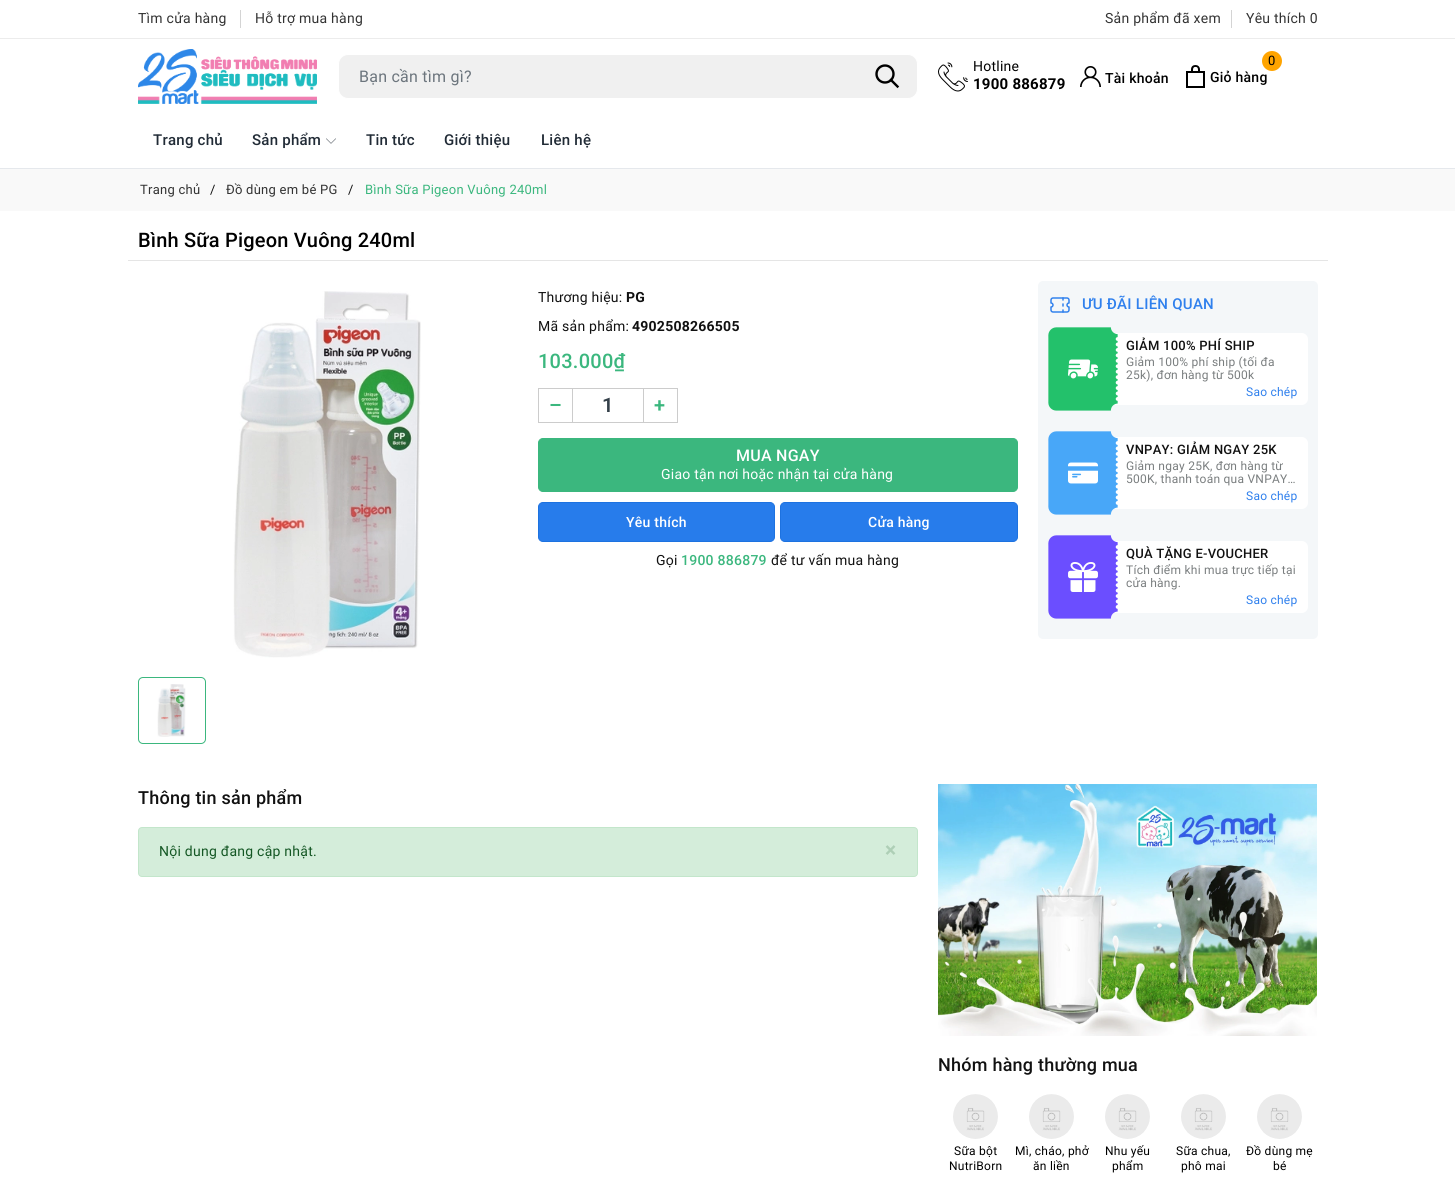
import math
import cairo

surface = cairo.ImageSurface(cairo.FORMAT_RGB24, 1455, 1185)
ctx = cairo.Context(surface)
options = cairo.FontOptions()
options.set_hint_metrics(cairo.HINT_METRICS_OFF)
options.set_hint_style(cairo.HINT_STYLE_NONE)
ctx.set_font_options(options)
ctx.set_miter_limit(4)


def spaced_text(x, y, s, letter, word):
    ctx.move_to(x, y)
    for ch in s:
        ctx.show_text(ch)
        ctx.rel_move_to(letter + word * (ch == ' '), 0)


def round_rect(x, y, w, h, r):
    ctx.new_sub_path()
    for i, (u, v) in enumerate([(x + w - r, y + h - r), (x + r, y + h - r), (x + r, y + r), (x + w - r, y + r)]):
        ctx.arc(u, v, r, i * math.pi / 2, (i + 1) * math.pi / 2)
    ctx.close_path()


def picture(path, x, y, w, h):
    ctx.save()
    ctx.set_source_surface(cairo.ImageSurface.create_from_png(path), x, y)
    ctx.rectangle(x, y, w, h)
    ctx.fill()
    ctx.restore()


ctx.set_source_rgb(1, 1, 1)
ctx.paint()
ctx.set_source_rgb(0.922, 0.922, 0.922)
ctx.rectangle(0, 38, 1455, 1)
ctx.fill()
ctx.select_font_face("Roboto")
ctx.set_font_size(14)
ctx.set_source_rgb(0.2, 0.2, 0.2)
spaced_text(138, 23, "Tìm cửa hàng", 0.25, 0)
ctx.set_source_rgb(0.831, 0.831, 0.831)
ctx.rectangle(240, 10, 1, 18)
ctx.fill()
ctx.set_source_rgb(0.2, 0.2, 0.2)
spaced_text(255, 23, "Hỗ trợ mua hàng", 0.25, 0)
spaced_text(1105, 23, "Sản phẩm đã xem", 0.25, 0)
ctx.set_source_rgb(0.831, 0.831, 0.831)
ctx.rectangle(1231, 10, 1, 18)
ctx.fill()
ctx.set_source_rgb(0.2, 0.2, 0.2)
spaced_text(1246, 23, "Yêu thích 0", 0.25, 0)
picture("img1.png", 138, 49, 179, 55)
ctx.set_source_rgb(0.941, 0.941, 0.941)
round_rect(338.5, 54.5, 579, 44, 9.5)
ctx.fill_preserve()
ctx.set_source_rgb(1, 1, 1)
ctx.set_line_width(1)
ctx.stroke()
ctx.set_font_size(16)
ctx.set_source_rgb(0.424, 0.459, 0.49)
spaced_text(359, 82, "Bạn cần tìm gì?", 0.25, 0)
ctx.new_path()
ctx.move_to(897.5, 86.5)
ctx.line_to(891, 80)
ctx.set_source_rgb(0, 0, 0)
ctx.set_line_width(2.4)
ctx.set_line_cap(cairo.LINE_CAP_SQUARE)
ctx.stroke()
ctx.arc(885, 74, 8.5, 0, 2 * math.pi)
ctx.set_line_cap(cairo.LINE_CAP_BUTT)
ctx.stroke()
picture("img2.png", 938, 62, 30, 30)
ctx.set_font_size(14)
spaced_text(973, 71, "Hotline", 0.25, 0)
ctx.select_font_face("Roboto", cairo.FONT_SLANT_NORMAL, cairo.FONT_WEIGHT_BOLD)
ctx.set_font_size(15)
spaced_text(973, 89, "1900 886879", 0.25, 0)
picture("img3.png", 1080, 66, 21, 21)
ctx.select_font_face("Roboto Medium")
ctx.set_font_size(14)
spaced_text(1105, 83, "Tài khoản", 0.25, 0)
ctx.set_source_rgb(1, 0.643, 0)
ctx.new_path()
ctx.arc(1272, 61, 10, 0, 2 * math.pi)
ctx.fill()
ctx.select_font_face("Roboto")
ctx.set_font_size(13)
ctx.set_source_rgb(0, 0, 0)
spaced_text(1268, 65, "0", 0.25, 0)
picture("img4.png", 1186, 65, 19, 23)
ctx.select_font_face("Roboto Medium")
ctx.set_font_size(14)
spaced_text(1210, 82, "Giỏ hàng", 0.25, 0)
ctx.set_source_rgb(0.898, 0.91, 0.922)
ctx.rectangle(0, 168, 1455, 1)
ctx.fill()
ctx.set_font_size(15)
ctx.set_source_rgb(0.129, 0.169, 0.212)
spaced_text(153, 145, "Trang chủ", 0.25, 0)
spaced_text(252, 145, "Sản phẩm", 0.25, 0)
picture("img5.png", 326, 138, 10, 6)
spaced_text(366, 145, "Tin tức", 0.25, 0)
spaced_text(444, 145, "Giới thiệu", 0.25, 0)
spaced_text(541, 145, "Liên hệ", 0.25, 0)
ctx.set_source_rgb(0.976, 0.976, 0.976)
ctx.rectangle(0, 169, 1455, 42)
ctx.fill()
ctx.select_font_face("Roboto")
ctx.set_font_size(13)
ctx.set_source_rgb(0.2, 0.2, 0.2)
spaced_text(140, 194, "Trang chủ", 0.25, 0)
ctx.set_source_rgb(0.067, 0.067, 0.067)
spaced_text(210, 194, "/", 0.25, 0)
ctx.set_source_rgb(0.2, 0.2, 0.2)
spaced_text(226, 194, "Đồ dùng em bé PG", 0.25, 0)
ctx.set_source_rgb(0.067, 0.067, 0.067)
spaced_text(348, 194, "/", 0.25, 0)
ctx.set_source_rgb(0.231, 0.718, 0.494)
spaced_text(365, 194, "Bình Sữa Pigeon Vuông 240ml", 0.25, 0)
ctx.set_source_rgb(0.898, 0.898, 0.898)
ctx.rectangle(128, 260, 1200, 1)
ctx.fill()
ctx.select_font_face("Roboto Medium")
ctx.set_font_size(20)
ctx.set_source_rgb(0, 0, 0)
spaced_text(138, 247, "Bình Sữa Pigeon Vuông 240ml", 0.2, 0)
picture("img6.png", 233, 291, 188, 367)
round_rect(138.5, 677.5, 67, 66, 4.5)
ctx.set_source_rgb(0.231, 0.718, 0.494)
ctx.set_line_width(1)
ctx.stroke()
picture("img7.png", 157, 684, 29, 53)
ctx.select_font_face("Roboto")
ctx.set_font_size(14)
ctx.set_source_rgb(0.067, 0.067, 0.067)
spaced_text(538, 302, "Thương hiệu:", 0.25, 0)
ctx.select_font_face("Roboto", cairo.FONT_SLANT_NORMAL, cairo.FONT_WEIGHT_BOLD)
spaced_text(626, 302, "PG", 0.25, 0)
ctx.select_font_face("Roboto")
spaced_text(538, 331, "Mã sản phẩm:", 0.25, 0)
ctx.select_font_face("Roboto", cairo.FONT_SLANT_NORMAL, cairo.FONT_WEIGHT_BOLD)
spaced_text(632, 331, "4902508266505", 0.25, 0)
ctx.select_font_face("Roboto Medium")
ctx.set_font_size(20)
ctx.set_source_rgb(0.231, 0.718, 0.494)
spaced_text(538, 368, "103.000₫", 0.25, 0)
ctx.rectangle(538.5, 388.5, 34, 34)
ctx.set_source_rgb(0.8, 0.8, 0.8)
ctx.stroke()
ctx.select_font_face("Roboto SemiBold")
ctx.set_source_rgb(0.231, 0.718, 0.494)
spaced_text(549, 412, "–", 0.25, 0)
ctx.set_source_rgb(0.8, 0.8, 0.8)
ctx.rectangle(573, 388, 70, 1)
ctx.fill()
ctx.rectangle(573, 422, 70, 1)
ctx.fill()
ctx.set_source_rgb(0.2, 0.247, 0.282)
spaced_text(602, 412, "1", 0.25, 0)
ctx.rectangle(643.5, 388.5, 34, 34)
ctx.set_source_rgb(0.8, 0.8, 0.8)
ctx.stroke()
ctx.set_source_rgb(0.231, 0.718, 0.494)
spaced_text(654, 412, "+", 0.25, 0)
round_rect(538.5, 438.5, 479, 53, 4.5)
ctx.fill_preserve()
ctx.stroke()
ctx.select_font_face("Roboto Medium")
ctx.set_font_size(16)
ctx.set_source_rgb(1, 1, 1)
spaced_text(736, 461, "MUA NGAY", 0.25, 0)
ctx.select_font_face("Roboto")
ctx.set_font_size(14)
spaced_text(661, 479, "Giao tận nơi hoặc nhận tại cửa hàng", 0.25, 0)
ctx.set_source_rgb(0.153, 0.486, 0.918)
round_rect(538.5, 502.5, 236, 39, 4.5)
ctx.fill_preserve()
ctx.set_source_rgb(0.114, 0.447, 0.878)
ctx.stroke()
ctx.select_font_face("Roboto Medium")
ctx.set_source_rgb(1, 1, 1)
spaced_text(626, 527, "Yêu thích", 0.25, 0)
ctx.set_source_rgb(0.153, 0.486, 0.918)
round_rect(780.5, 502.5, 237, 39, 4.5)
ctx.fill_preserve()
ctx.set_source_rgb(0.114, 0.447, 0.878)
ctx.stroke()
ctx.set_source_rgb(1, 1, 1)
spaced_text(868, 527, "Cửa hàng", 0.25, 0)
ctx.select_font_face("Roboto")
ctx.set_source_rgb(0.067, 0.067, 0.067)
spaced_text(656, 565, "Gọi", 0.25, 0)
ctx.select_font_face("Roboto Medium")
ctx.set_source_rgb(0.231, 0.718, 0.494)
spaced_text(681, 565, "1900 886879", 0.25, 0)
ctx.select_font_face("Roboto")
ctx.set_source_rgb(0.067, 0.067, 0.067)
spaced_text(771, 565, "để tư vấn mua hàng", 0.25, 0)
ctx.set_source_rgb(0.957, 0.965, 0.973)
round_rect(1038, 281, 280, 358, 5)
ctx.fill()
picture("img8.png", 1050, 297, 20, 16)
ctx.select_font_face("Roboto Medium")
ctx.set_font_size(15)
ctx.set_source_rgb(0.184, 0.502, 0.929)
spaced_text(1082, 309, "ƯU ĐÃI LIÊN QUAN", 0.25, 0)
ctx.set_source_rgb(1, 1, 1)
ctx.new_path()
ctx.move_to(1103, 405)
ctx.line_to(1054, 405)
ctx.curve_to(1051, 405, 1048, 402, 1048, 399)
ctx.line_to(1048, 339)
ctx.curve_to(1048, 336, 1051, 333, 1054, 333)
ctx.line_to(1103, 333)
ctx.curve_to(1103, 341, 1115, 341, 1115, 333)
ctx.line_to(1302, 333)
ctx.curve_to(1305, 333, 1308, 336, 1308, 339)
ctx.line_to(1308, 399)
ctx.curve_to(1308, 402, 1305, 405, 1302, 405)
ctx.line_to(1115, 405)
ctx.curve_to(1115, 397, 1103, 397, 1103, 405)
ctx.close_path()
ctx.fill()
picture("img9.png", 1048, 327, 70, 84)
picture("img10.png", 1068, 359, 30, 20)
ctx.set_font_size(13)
ctx.set_source_rgb(0.067, 0.067, 0.067)
spaced_text(1126, 350, "GIẢM 100% PHÍ SHIP", 0.25, 0)
ctx.select_font_face("Roboto")
ctx.set_font_size(12)
ctx.set_source_rgb(0.478, 0.494, 0.498)
spaced_text(1126, 366, "Giảm 100% phí ship (tối đa", 0.25, 0)
spaced_text(1126, 379, "25k), đơn hàng từ 500k", 0.25, 0)
ctx.set_source_rgb(0.184, 0.502, 0.929)
spaced_text(1246, 396, "Sao chép", 0.25, 0)
ctx.set_source_rgb(1, 1, 1)
ctx.new_path()
ctx.move_to(1103, 509)
ctx.line_to(1054, 509)
ctx.curve_to(1051, 509, 1048, 506, 1048, 503)
ctx.line_to(1048, 443)
ctx.curve_to(1048, 440, 1051, 437, 1054, 437)
ctx.line_to(1103, 437)
ctx.curve_to(1103, 445, 1115, 445, 1115, 437)
ctx.line_to(1302, 437)
ctx.curve_to(1305, 437, 1308, 440, 1308, 443)
ctx.line_to(1308, 503)
ctx.curve_to(1308, 506, 1305, 509, 1302, 509)
ctx.line_to(1115, 509)
ctx.curve_to(1115, 501, 1103, 501, 1103, 509)
ctx.close_path()
ctx.fill()
picture("img11.png", 1048, 431, 70, 84)
picture("img12.png", 1068, 462, 30, 22)
ctx.select_font_face("Roboto Medium")
ctx.set_font_size(13)
ctx.set_source_rgb(0.067, 0.067, 0.067)
spaced_text(1126, 454, "VNPAY: GIẢM NGAY 25K", 0.25, 0)
ctx.select_font_face("Roboto")
ctx.set_font_size(12)
ctx.set_source_rgb(0.478, 0.494, 0.498)
spaced_text(1126, 470, "Giảm ngay 25K, đơn hàng từ", 0.25, 0)
spaced_text(1126, 483, "500K, thanh toán qua VNPAY…", 0.25, 0)
ctx.set_source_rgb(0.184, 0.502, 0.929)
spaced_text(1246, 500, "Sao chép", 0.25, 0)
ctx.set_source_rgb(1, 1, 1)
ctx.new_path()
ctx.move_to(1103, 613)
ctx.line_to(1054, 613)
ctx.curve_to(1051, 613, 1048, 610, 1048, 607)
ctx.line_to(1048, 547)
ctx.curve_to(1048, 544, 1051, 541, 1054, 541)
ctx.line_to(1103, 541)
ctx.curve_to(1103, 549, 1115, 549, 1115, 541)
ctx.line_to(1302, 541)
ctx.curve_to(1305, 541, 1308, 544, 1308, 547)
ctx.line_to(1308, 607)
ctx.curve_to(1308, 610, 1305, 613, 1302, 613)
ctx.line_to(1115, 613)
ctx.curve_to(1115, 605, 1103, 605, 1103, 613)
ctx.close_path()
ctx.fill()
picture("img13.png", 1048, 535, 70, 84)
picture("img14.png", 1068, 562, 30, 30)
ctx.select_font_face("Roboto Medium")
ctx.set_font_size(13)
ctx.set_source_rgb(0.067, 0.067, 0.067)
spaced_text(1126, 558, "QUÀ TẶNG E-VOUCHER", 0.25, 0)
ctx.select_font_face("Roboto")
ctx.set_font_size(12)
ctx.set_source_rgb(0.478, 0.494, 0.498)
spaced_text(1126, 574, "Tích điểm khi mua trực tiếp tại", 0.25, 0)
spaced_text(1126, 587, "cửa hàng.", 0.25, 0)
ctx.set_source_rgb(0.184, 0.502, 0.929)
spaced_text(1246, 604, "Sao chép", 0.25, 0)
ctx.select_font_face("Roboto Medium")
ctx.set_font_size(18)
ctx.set_source_rgb(0.067, 0.067, 0.067)
spaced_text(138, 804, "Thông tin sản phẩm", 0.25, 0)
ctx.set_source_rgb(0.831, 0.929, 0.855)
round_rect(138.5, 827.5, 779, 49, 3.5)
ctx.fill_preserve()
ctx.set_source_rgb(0.765, 0.902, 0.796)
ctx.stroke()
ctx.select_font_face("Roboto")
ctx.set_font_size(14)
ctx.set_source_rgb(0.082, 0.341, 0.141)
spaced_text(159, 856, "Nội dung đang cập nhật.", 0.25, 0)
ctx.select_font_face("Roboto", cairo.FONT_SLANT_NORMAL, cairo.FONT_WEIGHT_BOLD)
ctx.set_font_size(21)
ctx.set_source_rgb(0.682, 0.812, 0.714)
spaced_text(885, 857, "×", 0.25, 0)
picture("img15.png", 938, 784, 379, 252)
ctx.select_font_face("Roboto Medium")
ctx.set_font_size(18)
ctx.set_source_rgb(0.067, 0.067, 0.067)
spaced_text(938, 1071, "Nhóm hàng thường mua", 0.25, 0)
picture("img16.png", 953, 1094, 45, 45)
ctx.select_font_face("Roboto")
ctx.set_font_size(12)
ctx.set_source_rgb(0, 0, 0)
spaced_text(954, 1155, "Sữa bột", 0.25, 0)
spaced_text(949, 1170, "NutriBorn", 0.25, 0)
picture("img17.png", 1029, 1094, 45, 45)
spaced_text(1015, 1155, "Mì, cháo, phở", 0.25, 0)
spaced_text(1033, 1170, "ăn liền", 0.25, 0)
picture("img18.png", 1105, 1094, 45, 45)
spaced_text(1105, 1155, "Nhu yếu", 0.25, 0)
spaced_text(1112, 1170, "phẩm", 0.25, 0)
picture("img19.png", 1181, 1094, 45, 45)
spaced_text(1176, 1155, "Sữa chua,", 0.25, 0)
spaced_text(1181, 1170, "phô mai", 0.25, 0)
picture("img20.png", 1257, 1094, 45, 45)
spaced_text(1246, 1155, "Đồ dùng mẹ", 0.25, 0)
spaced_text(1273, 1170, "bé", 0.25, 0)
surface.write_to_png("page.png")
